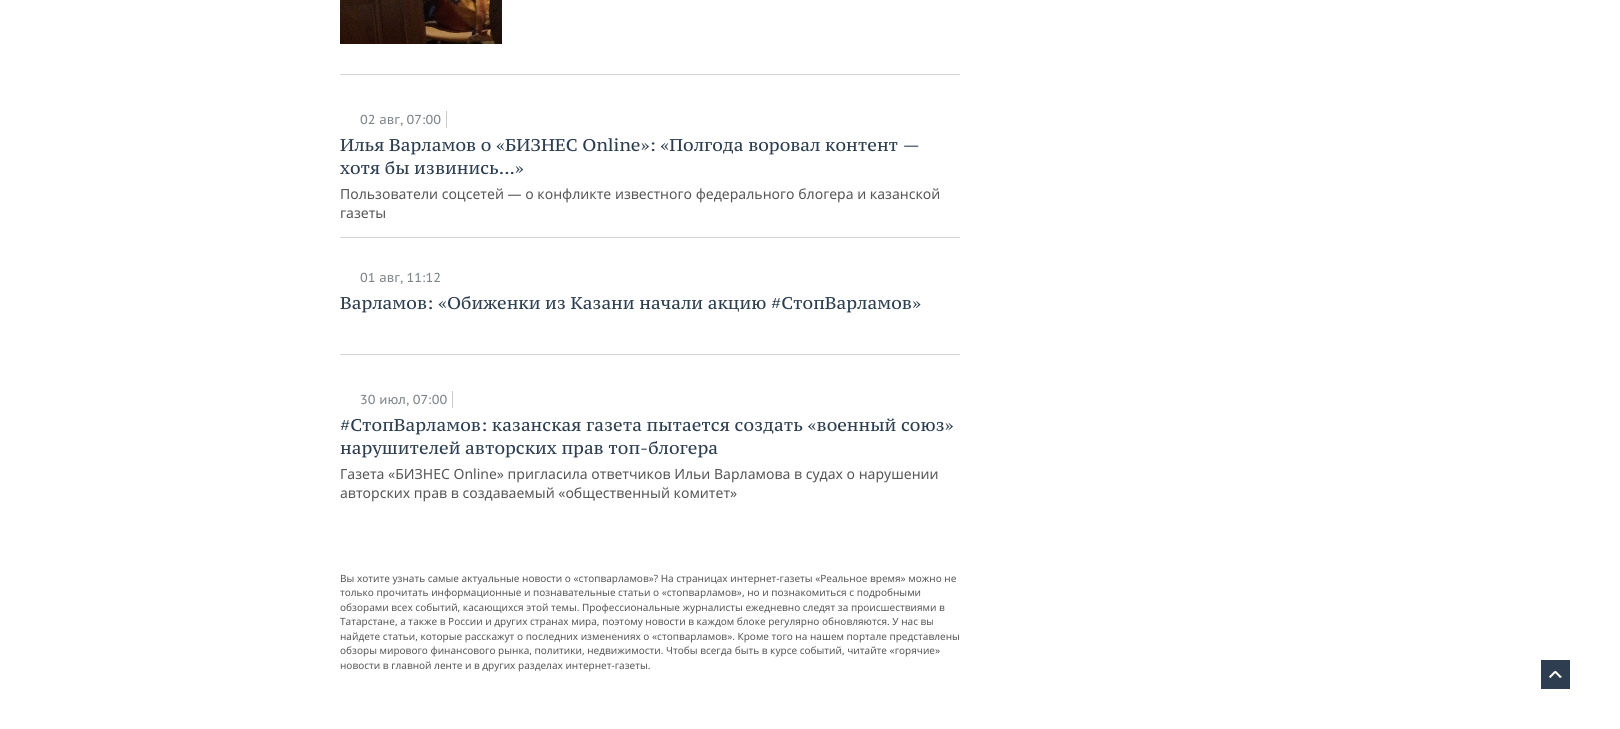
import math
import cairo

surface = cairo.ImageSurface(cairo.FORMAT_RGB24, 1620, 729)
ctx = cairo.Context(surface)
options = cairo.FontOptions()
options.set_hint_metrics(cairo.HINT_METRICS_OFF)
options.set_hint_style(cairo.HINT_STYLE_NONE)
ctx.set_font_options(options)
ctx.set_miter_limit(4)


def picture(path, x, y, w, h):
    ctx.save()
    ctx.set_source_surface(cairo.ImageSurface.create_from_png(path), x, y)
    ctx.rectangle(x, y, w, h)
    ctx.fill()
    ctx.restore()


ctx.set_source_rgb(1, 1, 1)
ctx.paint()
picture("img1.png", 340, 0, 162, 44)
ctx.set_source_rgb(0.824, 0.827, 0.831)
ctx.rectangle(340, 74, 620, 1)
ctx.fill()
ctx.set_source_rgb(0.8, 0.8, 0.8)
ctx.rectangle(446, 111, 1, 17)
ctx.fill()
ctx.select_font_face("PT Sans Caption")
ctx.set_font_size(13)
ctx.set_source_rgb(0.502, 0.522, 0.537)
ctx.move_to(360, 124)
ctx.show_text("02 авг, 07:00")
ctx.select_font_face("PT Serif Caption")
ctx.set_font_size(17)
ctx.set_source_rgb(0.173, 0.243, 0.314)
ctx.move_to(340, 151)
ctx.show_text("Илья Варламов о «БИЗНЕС Online»: «Полгода воровал контент —")
ctx.move_to(340, 174)
ctx.show_text("хотя бы извинись...»")
ctx.select_font_face("Noto Sans")
ctx.set_font_size(14)
ctx.set_source_rgb(0.333, 0.333, 0.333)
ctx.move_to(340, 199)
ctx.show_text("Пользователи соцсетей — о конфликте известного федерального блогера и казанской")
ctx.move_to(340, 218)
ctx.show_text("газеты")
ctx.set_source_rgb(0.824, 0.827, 0.831)
ctx.rectangle(340, 237, 620, 1)
ctx.fill()
ctx.select_font_face("PT Sans Caption")
ctx.set_font_size(13)
ctx.set_source_rgb(0.502, 0.522, 0.537)
ctx.move_to(360, 282)
ctx.show_text("01 авг, 11:12")
ctx.select_font_face("PT Serif Caption")
ctx.set_font_size(17)
ctx.set_source_rgb(0.173, 0.243, 0.314)
ctx.move_to(340, 309)
ctx.show_text("Варламов: «Обиженки из Казани начали акцию #СтопВарламов»")
ctx.set_source_rgb(0.824, 0.827, 0.831)
ctx.rectangle(340, 354, 620, 1)
ctx.fill()
ctx.set_source_rgb(0.8, 0.8, 0.8)
ctx.rectangle(452, 391, 1, 17)
ctx.fill()
ctx.select_font_face("PT Sans Caption")
ctx.set_font_size(13)
ctx.set_source_rgb(0.502, 0.522, 0.537)
ctx.move_to(360, 404)
ctx.show_text("30 июл, 07:00")
ctx.select_font_face("PT Serif Caption")
ctx.set_font_size(17)
ctx.set_source_rgb(0.173, 0.243, 0.314)
ctx.move_to(340, 431)
ctx.show_text("#СтопВарламов: казанская газета пытается создать «военный союз»")
ctx.move_to(340, 454)
ctx.show_text("нарушителей авторских прав топ-блогера")
ctx.select_font_face("Noto Sans")
ctx.set_font_size(14)
ctx.set_source_rgb(0.333, 0.333, 0.333)
ctx.move_to(340, 479)
ctx.show_text("Газета «БИЗНЕС Online» пригласила ответчиков Ильи Варламова в судах о нарушении")
ctx.move_to(340, 498)
ctx.show_text("авторских прав в создаваемый «общественный комитет»")
ctx.set_font_size(10)
ctx.move_to(340, 582)
ctx.show_text("Вы хотите узнать самые актуальные новости о «стопварламов»? На страницах интернет-газеты «Реальное время» можно не")
ctx.move_to(340, 596)
ctx.show_text("только прочитать информационные и познавательные статьи о «стопварламов», но и познакомиться с подробными")
ctx.move_to(340, 611)
ctx.show_text("обзорами всех событий, касающихся этой темы. Профессиональные журналисты ежедневно следят за происшествиями в")
ctx.move_to(340, 625)
ctx.show_text("Татарстане, а также в России и других странах мира, поэтому новости в каждом блоке регулярно обновляются. У нас вы")
ctx.move_to(340, 640)
ctx.show_text("найдете статьи, которые расскажут о последних изменениях о «стопварламов». Кроме того на нашем портале представлены")
ctx.move_to(340, 654)
ctx.show_text("обзоры мирового финансового рынка, политики, недвижимости. Чтобы всегда быть в курсе событий, читайте «горячие»")
ctx.move_to(340, 669)
ctx.show_text("новости в главной ленте и в других разделах интернет-газеты.")
ctx.set_source_rgb(0.18, 0.243, 0.314)
ctx.rectangle(1541, 660, 29, 29)
ctx.fill()
picture("img2.png", 1549, 671, 13, 7)
surface.write_to_png("page.png")
